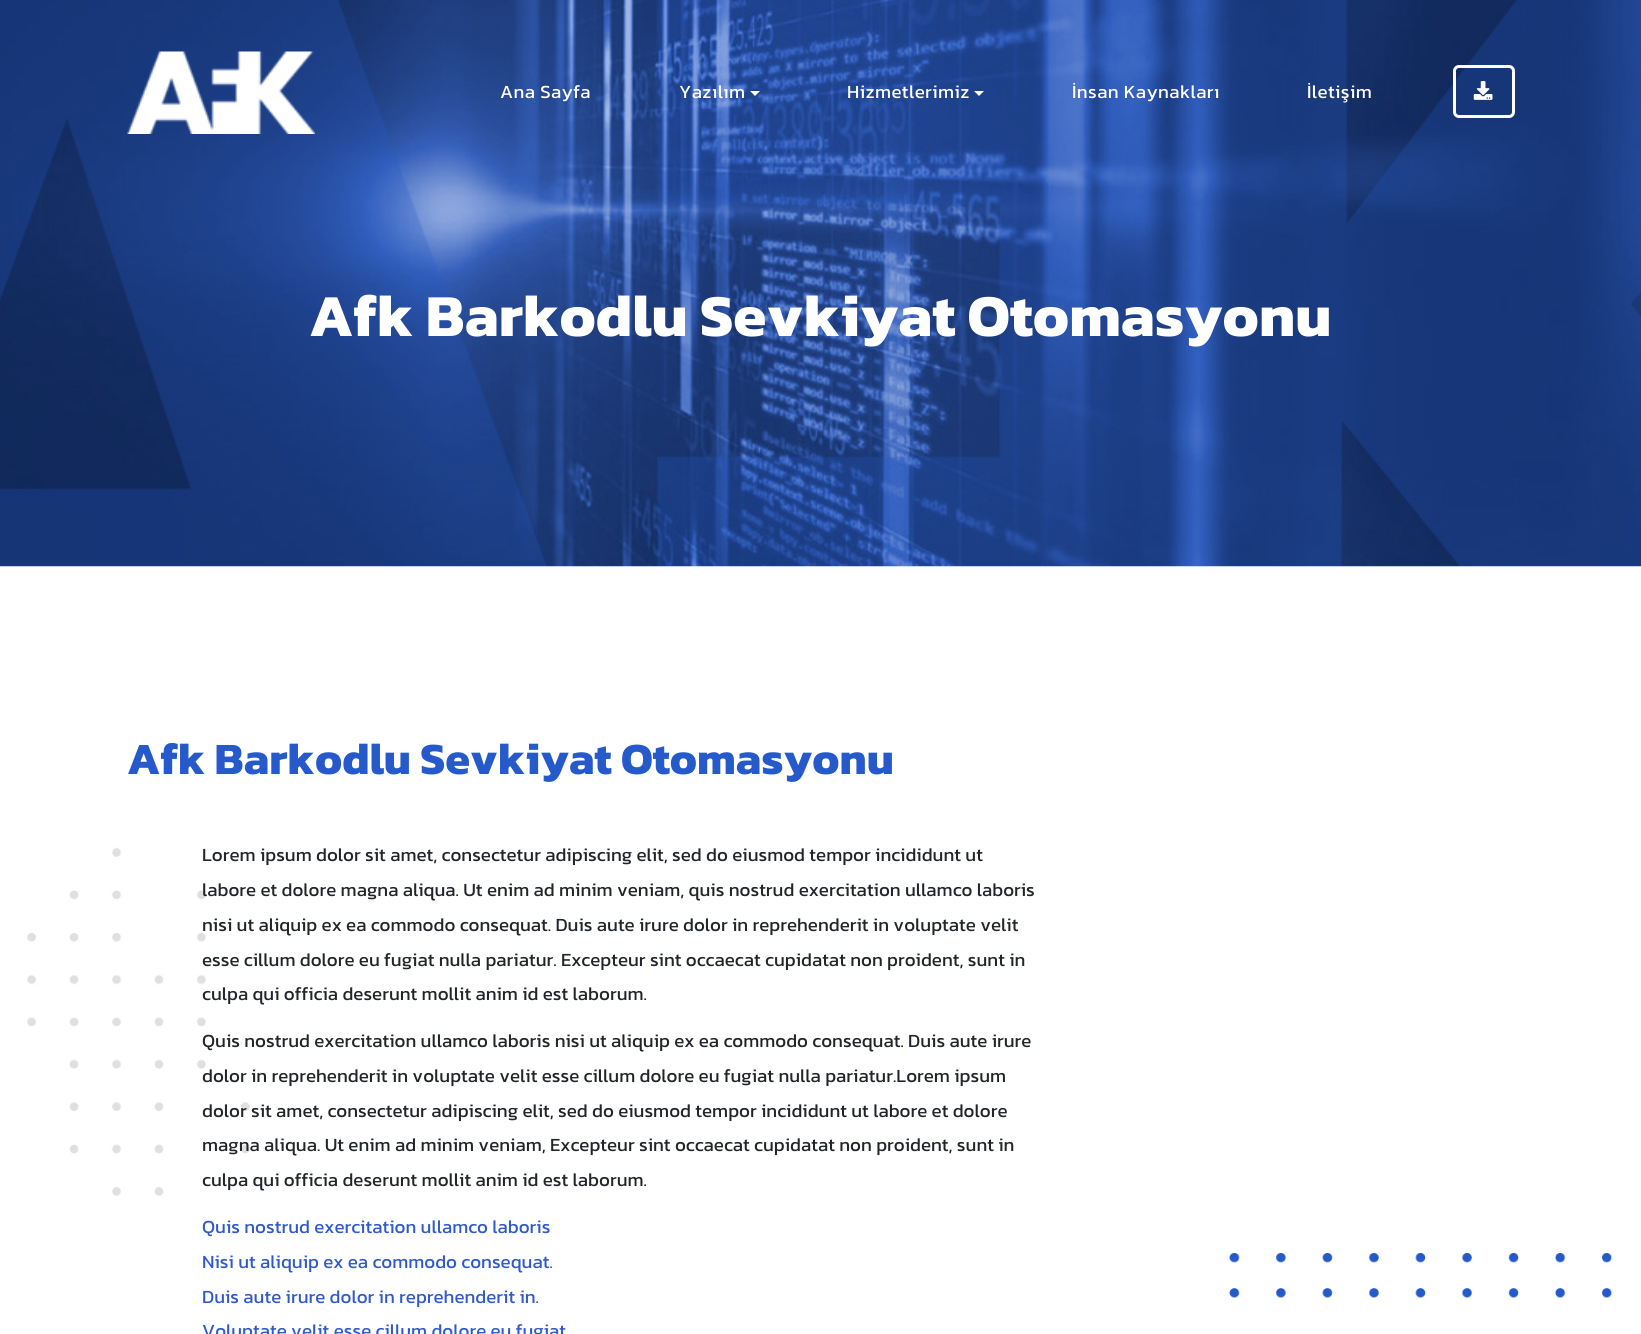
import math
import cairo

surface = cairo.ImageSurface(cairo.FORMAT_RGB24, 1641, 1334)
ctx = cairo.Context(surface)
options = cairo.FontOptions()
options.set_hint_metrics(cairo.HINT_METRICS_OFF)
options.set_hint_style(cairo.HINT_STYLE_NONE)
ctx.set_font_options(options)
ctx.set_miter_limit(4)


def spaced_text(x, y, s, letter, word):
    ctx.move_to(x, y)
    for ch in s:
        ctx.show_text(ch)
        ctx.rel_move_to(letter + word * (ch == ' '), 0)


def round_rect(x, y, w, h, r):
    ctx.new_sub_path()
    for i, (u, v) in enumerate([(x + w - r, y + h - r), (x + r, y + h - r), (x + r, y + r), (x + w - r, y + r)]):
        ctx.arc(u, v, r, i * math.pi / 2, (i + 1) * math.pi / 2)
    ctx.close_path()


def picture(path, x, y, w, h):
    ctx.save()
    ctx.set_source_surface(cairo.ImageSurface.create_from_png(path), x, y)
    ctx.rectangle(x, y, w, h)
    ctx.fill()
    ctx.restore()


ctx.set_source_rgb(1, 1, 1)
ctx.paint()
picture("img3.png", 0, 0, 1641, 567)
picture("img1.png", 127, 51, 188, 83)
ctx.select_font_face("Kanit")
ctx.set_font_size(18.75)
ctx.set_source_rgb(1, 1, 1)
spaced_text(500, 98, "Ana Sayfa", 0.4, 0)
spaced_text(679, 98, "Yazılım", 0.4, 0)
ctx.new_path()
ctx.move_to(750, 91)
ctx.line_to(760, 91)
ctx.line_to(755, 96)
ctx.close_path()
ctx.fill()
spaced_text(847, 98, "Hizmetlerimiz", 0.4, 0)
ctx.new_path()
ctx.move_to(974, 91)
ctx.line_to(984, 91)
ctx.line_to(979, 96)
ctx.close_path()
ctx.fill()
spaced_text(1072, 98, "İnsan Kaynakları", 0.4, 0)
spaced_text(1307, 98, "İletişim", 0.4, 0)
round_rect(1454.5, 66.5, 59, 50, 4.5)
ctx.set_line_width(3)
ctx.stroke()
picture("img2.png", 1473, 81, 20, 19)
ctx.select_font_face("Kanit", cairo.FONT_SLANT_NORMAL, cairo.FONT_WEIGHT_BOLD)
ctx.set_font_size(60)
ctx.move_to(309, 336)
ctx.show_text("Afk Barkodlu Sevkiyat Otomasyonu")
picture("img4.png", 0, 566, 1641, 766)
ctx.set_font_size(45)
ctx.set_source_rgb(0.149, 0.353, 0.796)
ctx.move_to(127, 774)
ctx.show_text("Afk Barkodlu Sevkiyat Otomasyonu")
ctx.select_font_face("Kanit")
ctx.set_font_size(18.75)
ctx.set_source_rgb(0.129, 0.145, 0.161)
ctx.move_to(202, 861)
ctx.show_text("Lorem ipsum dolor sit amet, consectetur adipiscing elit, sed do eiusmod tempor incididunt ut")
ctx.move_to(202, 896)
ctx.show_text("labore et dolore magna aliqua. Ut enim ad minim veniam, quis nostrud exercitation ullamco laboris")
ctx.move_to(202, 931)
ctx.show_text("nisi ut aliquip ex ea commodo consequat. Duis aute irure dolor in reprehenderit in voluptate velit")
ctx.move_to(202, 966)
ctx.show_text("esse cillum dolore eu fugiat nulla pariatur. Excepteur sint occaecat cupidatat non proident, sunt in")
ctx.move_to(202, 1000)
ctx.show_text("culpa qui officia deserunt mollit anim id est laborum.")
ctx.move_to(202, 1047)
ctx.show_text("Quis nostrud exercitation ullamco laboris nisi ut aliquip ex ea commodo consequat. Duis aute irure")
ctx.move_to(202, 1082)
ctx.show_text("dolor in reprehenderit in voluptate velit esse cillum dolore eu fugiat nulla pariatur.Lorem ipsum")
ctx.move_to(202, 1117)
ctx.show_text("dolor sit amet, consectetur adipiscing elit, sed do eiusmod tempor incididunt ut labore et dolore")
ctx.move_to(202, 1151)
ctx.show_text("magna aliqua. Ut enim ad minim veniam, Excepteur sint occaecat cupidatat non proident, sunt in")
ctx.move_to(202, 1186)
ctx.show_text("culpa qui officia deserunt mollit anim id est laborum.")
ctx.set_source_rgb(0.184, 0.353, 0.796)
ctx.move_to(202, 1233)
ctx.show_text("Quis nostrud exercitation ullamco laboris")
ctx.move_to(202, 1268)
ctx.show_text("Nisi ut aliquip ex ea commodo consequat.")
ctx.move_to(202, 1303)
ctx.show_text("Duis aute irure dolor in reprehenderit in.")
ctx.move_to(202, 1337)
ctx.show_text("Voluptate velit esse cillum dolore eu fugiat")
surface.write_to_png("page.png")
